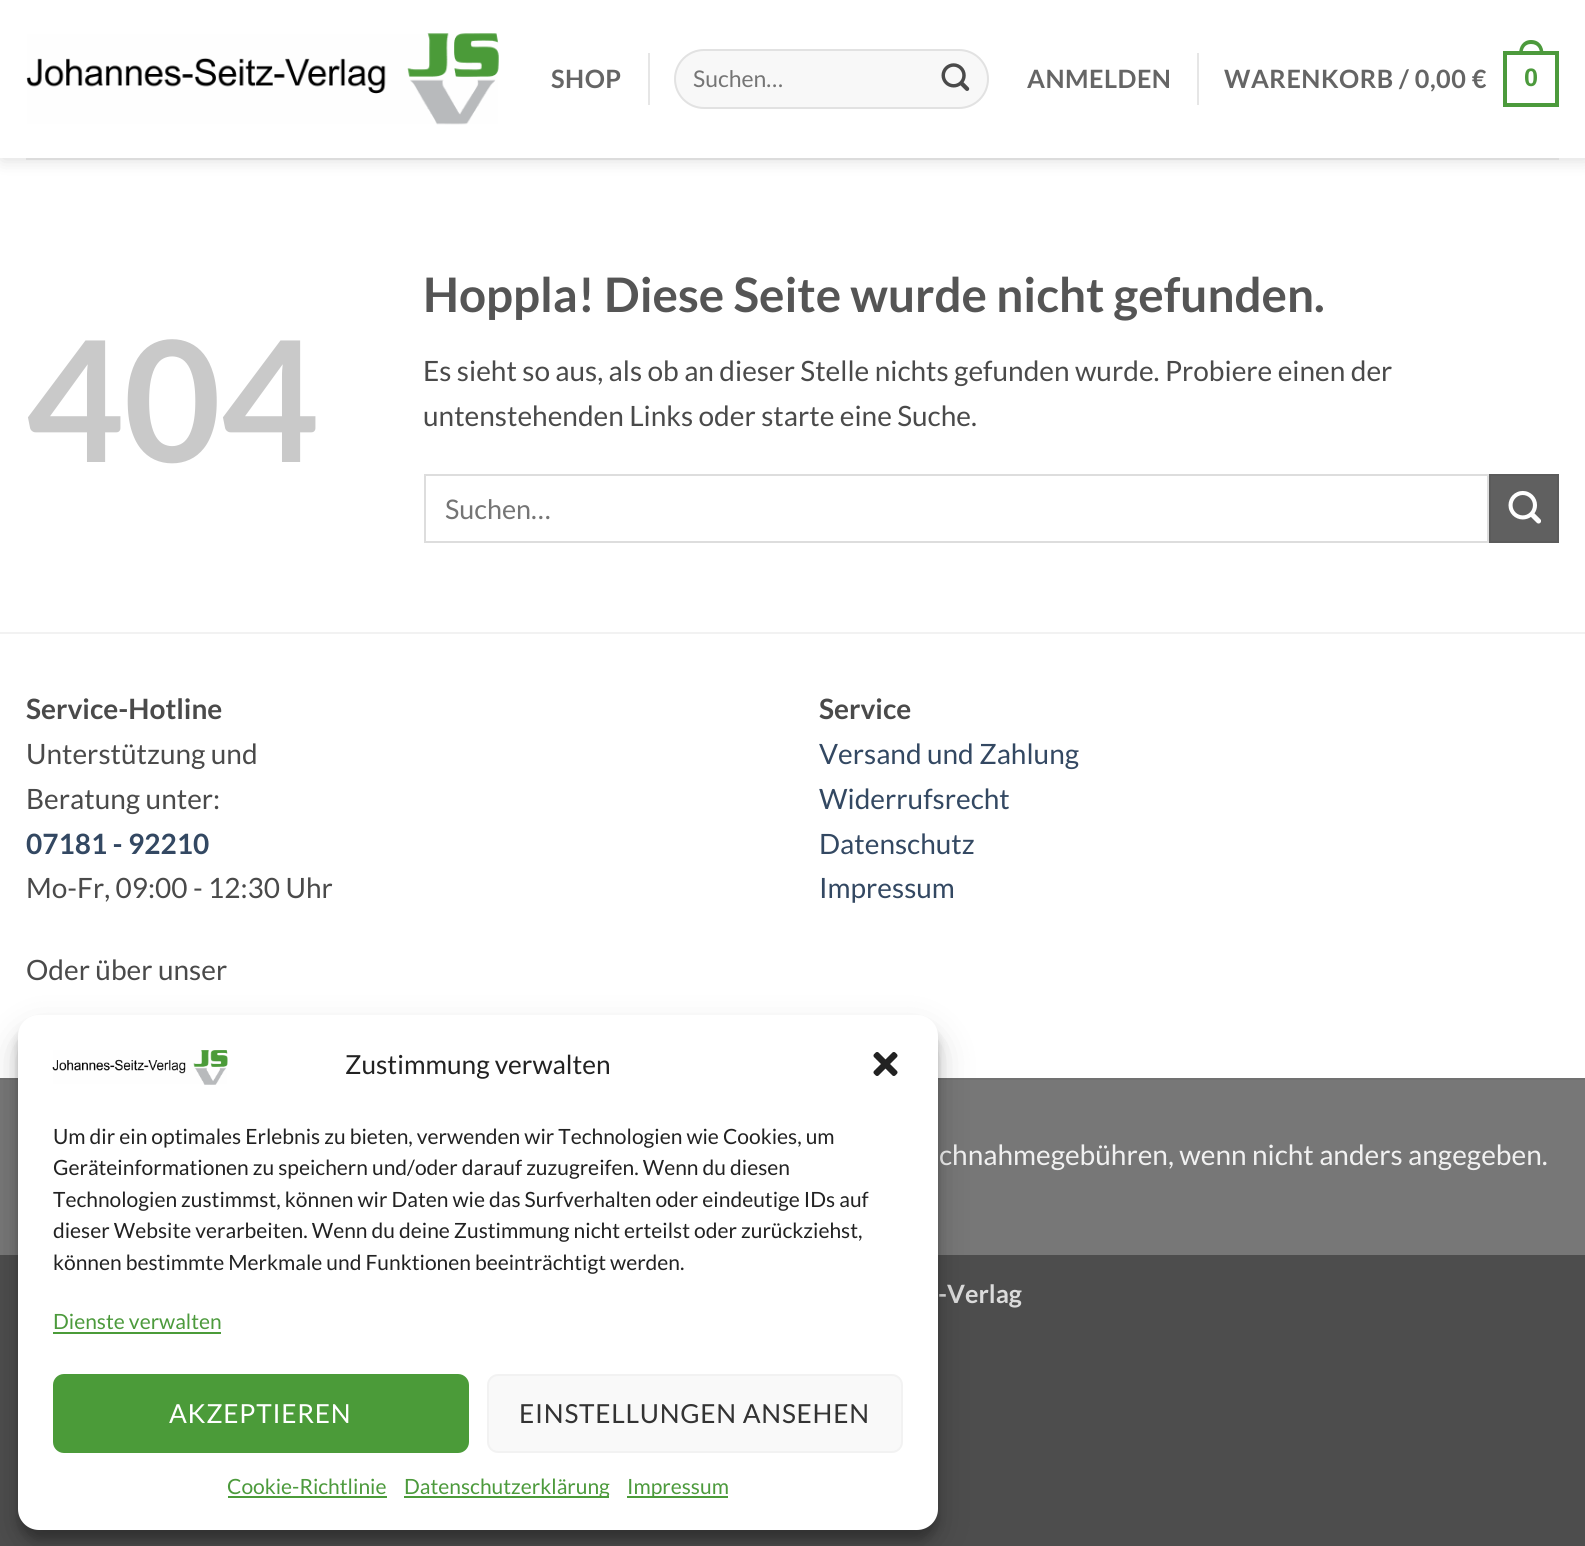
import math
import cairo

surface = cairo.ImageSurface(cairo.FORMAT_RGB24, 1585, 1546)
ctx = cairo.Context(surface)
options = cairo.FontOptions()
options.set_hint_metrics(cairo.HINT_METRICS_OFF)
options.set_hint_style(cairo.HINT_STYLE_NONE)
ctx.set_font_options(options)
ctx.set_miter_limit(4)


def spaced_text(x, y, s, letter, word):
    ctx.move_to(x, y)
    for ch in s:
        ctx.show_text(ch)
        ctx.rel_move_to(letter + word * (ch == ' '), 0)


def round_rect(x, y, w, h, r):
    ctx.new_sub_path()
    for i, (u, v) in enumerate([(x + w - r, y + h - r), (x + r, y + h - r), (x + r, y + r), (x + w - r, y + r)]):
        ctx.arc(u, v, r, i * math.pi / 2, (i + 1) * math.pi / 2)
    ctx.close_path()


def shadow(x, y, w, h, r, blur, alpha):
    ctx.push_group_with_content(cairo.CONTENT_ALPHA)
    ctx.set_operator(cairo.OPERATOR_SOURCE)
    for i in range(15, -16, -2):
        e = blur * i / 6
        if min(w, h) + 2 * e > 0:
            ctx.set_source_rgba(0, 0, 0, alpha * math.erfc((i - 1) / 8.5) / 2)
            round_rect(x - e, y - e, w + 2 * e, h + 2 * e, max(0, min(r + e + blur * .6, min(w, h) / 2 + e)))
            ctx.fill()
    ctx.mask(ctx.pop_group())


def picture(path, x, y, w, h):
    ctx.save()
    ctx.set_source_surface(cairo.ImageSurface.create_from_png(path), x, y)
    ctx.rectangle(x, y, w, h)
    ctx.fill()
    ctx.restore()


ctx.set_source_rgb(0.302, 0.302, 0.302)
ctx.paint()
ctx.set_source_rgb(1, 1, 1)
ctx.rectangle(0, 0, 1585, 1078)
ctx.fill()
ctx.save()
ctx.set_fill_rule(cairo.FILL_RULE_EVEN_ODD)
ctx.new_path()
ctx.move_to(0, 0)
ctx.line_to(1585, 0)
ctx.line_to(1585, 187)
ctx.line_to(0, 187)
ctx.close_path()
ctx.move_to(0, 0)
ctx.line_to(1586, 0)
ctx.line_to(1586, 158)
ctx.line_to(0, 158)
ctx.close_path()
ctx.clip()
ctx.set_source_rgb(0, 0, 0)
shadow(2, 2, 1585, 157, 0, 9, 0.15)
ctx.restore()
picture("img1.png", 26, 33, 473, 92)
ctx.select_font_face("Lato", cairo.FONT_SLANT_NORMAL, cairo.FONT_WEIGHT_BOLD)
ctx.set_font_size(25.25)
ctx.set_source_rgb(0.396, 0.396, 0.396)
spaced_text(551, 88, "SHOP", 0.5, 0)
ctx.set_source_rgb(0.902, 0.902, 0.902)
ctx.rectangle(648, 53, 2, 52)
ctx.fill()
ctx.set_source_rgb(0.969, 0.969, 0.969)
round_rect(674, 49, 315, 60, 30)
ctx.fill()
round_rect(675, 50, 313, 58, 29)
ctx.set_source_rgba(0, 0, 0, 0.09)
ctx.stroke()
ctx.select_font_face("Lato")
ctx.set_font_size(23)
ctx.set_source_rgb(0.459, 0.459, 0.459)
ctx.move_to(693, 87)
ctx.show_text("Suchen…")
picture("img2.png", 941, 63, 29, 28)
ctx.select_font_face("Lato", cairo.FONT_SLANT_NORMAL, cairo.FONT_WEIGHT_BOLD)
ctx.set_font_size(25.25)
ctx.set_source_rgb(0.396, 0.396, 0.396)
spaced_text(1027, 88, "ANMELDEN", 0.5, 0)
ctx.set_source_rgb(0.902, 0.902, 0.902)
ctx.rectangle(1197, 53, 2, 52)
ctx.fill()
ctx.set_source_rgb(0.396, 0.396, 0.396)
spaced_text(1224, 88, "WARENKORB / 0,00 €", 0.5, 0)
ctx.rectangle(1505, 53, 52, 52)
ctx.set_source_rgb(0.298, 0.604, 0.235)
ctx.set_line_width(4)
ctx.stroke()
ctx.set_fill_rule(cairo.FILL_RULE_EVEN_ODD)
ctx.new_path()
ctx.move_to(1531, 40)
ctx.curve_to(1539.5, 40, 1543.5, 46.5, 1543.5, 54)
ctx.line_to(1519, 54)
ctx.curve_to(1519, 46.5, 1523, 40, 1531, 40)
ctx.close_path()
ctx.move_to(1531, 44)
ctx.curve_to(1537.5, 44, 1540, 48.5, 1540, 54)
ctx.line_to(1522.5, 54)
ctx.curve_to(1522.5, 48.5, 1525, 44, 1531, 44)
ctx.close_path()
ctx.fill()
ctx.select_font_face("Liberation Sans", cairo.FONT_SLANT_NORMAL, cairo.FONT_WEIGHT_BOLD)
spaced_text(1524, 86, "0", 0.5, 0)
ctx.set_source_rgb(0.863, 0.863, 0.863)
ctx.rectangle(26, 158, 1533, 2)
ctx.fill()
ctx.set_source_rgba(1, 1, 1, 0.9)
ctx.rectangle(0, 157, 1585, 1)
ctx.fill()
ctx.select_font_face("Lato", cairo.FONT_SLANT_NORMAL, cairo.FONT_WEIGHT_BOLD)
ctx.set_font_size(168)
ctx.set_source_rgb(0.788, 0.788, 0.788)
ctx.move_to(26, 462)
ctx.show_text("404")
ctx.set_font_size(47.6)
ctx.set_source_rgb(0.333, 0.333, 0.333)
ctx.move_to(423, 312)
ctx.show_text("Hoppla! Diese Seite wurde nicht gefunden.")
ctx.select_font_face("Lato")
ctx.set_font_size(28)
ctx.set_source_rgb(0.29, 0.29, 0.29)
ctx.move_to(423, 381)
ctx.show_text("Es sieht so aus, als ob an dieser Stelle nichts gefunden wurde. Probiere einen der")
ctx.move_to(423, 426)
ctx.show_text("untenstehenden Links oder starte eine Suche.")
ctx.rectangle(425, 475, 1063, 67)
ctx.set_source_rgb(0.867, 0.867, 0.867)
ctx.set_line_width(2)
ctx.stroke()
ctx.set_font_size(27)
ctx.set_source_rgb(0.459, 0.459, 0.459)
ctx.move_to(445, 519)
ctx.show_text("Suchen…")
ctx.set_source_rgb(0.376, 0.376, 0.376)
ctx.rectangle(1490, 475, 68, 67)
ctx.fill_preserve()
ctx.set_source_rgb(0.357, 0.357, 0.357)
ctx.stroke()
picture("img3.png", 1508, 490, 33, 34)
ctx.set_source_rgb(0.949, 0.949, 0.949)
ctx.rectangle(0, 632, 1585, 2)
ctx.fill()
ctx.select_font_face("Lato", cairo.FONT_SLANT_NORMAL, cairo.FONT_WEIGHT_BOLD)
ctx.set_font_size(28)
ctx.set_source_rgb(0.29, 0.29, 0.29)
ctx.move_to(26, 719)
ctx.show_text("Service-Hotline")
ctx.select_font_face("Lato")
ctx.move_to(26, 764)
ctx.show_text("Unterstützung und")
ctx.move_to(26, 809)
ctx.show_text("Beratung unter:")
ctx.select_font_face("Lato", cairo.FONT_SLANT_NORMAL, cairo.FONT_WEIGHT_BOLD)
ctx.set_source_rgb(0.2, 0.282, 0.384)
ctx.move_to(26, 854)
ctx.show_text("07181 - 92210")
ctx.select_font_face("Lato")
ctx.set_source_rgb(0.29, 0.29, 0.29)
ctx.move_to(26, 898)
ctx.show_text("Mo-Fr, 09:00 - 12:30 Uhr")
ctx.move_to(26, 980)
ctx.show_text("Oder über unser")
ctx.select_font_face("Lato", cairo.FONT_SLANT_NORMAL, cairo.FONT_WEIGHT_BOLD)
ctx.move_to(819, 719)
ctx.show_text("Service")
ctx.select_font_face("Lato")
ctx.set_source_rgb(0.2, 0.282, 0.384)
ctx.move_to(819, 764)
ctx.show_text("Versand und Zahlung")
ctx.move_to(819, 809)
ctx.show_text("Widerrufsrecht")
ctx.move_to(819, 854)
ctx.show_text("Datenschutz")
ctx.move_to(819, 898)
ctx.show_text("Impressum")
ctx.set_source_rgb(0.467, 0.467, 0.467)
ctx.rectangle(0, 1080, 1585, 175)
ctx.fill()
ctx.set_source_rgb(0.443, 0.443, 0.443)
ctx.rectangle(0, 1078, 1585, 2)
ctx.fill()
ctx.set_source_rgb(0.945, 0.945, 0.945)
ctx.move_to(939, 1165)
ctx.show_text("chnahmegebühren, wenn nicht anders angegeben.")
ctx.select_font_face("Lato", cairo.FONT_SLANT_NORMAL, cairo.FONT_WEIGHT_BOLD)
ctx.set_font_size(25.25)
ctx.set_source_rgb(0.859, 0.859, 0.859)
ctx.move_to(938, 1303)
ctx.show_text("-Verlag")
ctx.set_source_rgb(0, 0, 0)
shadow(18, 1026, 920, 514, 21, 5, 0.23)
shadow(18, 1033, 920, 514, 21, 17.5, 0.19)
ctx.set_source_rgb(1, 1, 1)
round_rect(18, 1015, 920, 515, 21)
ctx.fill()
picture("img4.png", 52, 1050, 176, 35)
ctx.select_font_face("Lato")
ctx.set_font_size(26.25)
ctx.set_source_rgb(0.133, 0.133, 0.133)
ctx.move_to(345, 1074)
ctx.show_text("Zustimmung verwalten")
picture("img5.png", 873, 1052, 25, 24)
ctx.set_font_size(21)
ctx.move_to(53, 1144)
ctx.show_text("Um dir ein optimales Erlebnis zu bieten, verwenden wir Technologien wie Cookies, um")
ctx.move_to(53, 1175)
ctx.show_text("Geräteinformationen zu speichern und/oder darauf zuzugreifen. Wenn du diesen")
ctx.move_to(53, 1207)
ctx.show_text("Technologien zustimmst, können wir Daten wie das Surfverhalten oder eindeutige IDs auf")
ctx.move_to(53, 1238)
ctx.show_text("dieser Website verarbeiten. Wenn du deine Zustimmung nicht erteilst oder zurückziehst,")
ctx.move_to(53, 1270)
ctx.show_text("können bestimmte Merkmale und Funktionen beeinträchtigt werden.")
ctx.set_source_rgb(0.298, 0.604, 0.235)
ctx.move_to(53, 1329)
ctx.show_text("Dienste verwalten")
ctx.set_source_rgb(0.294, 0.608, 0.224)
ctx.rectangle(53, 1332, 168, 2)
ctx.fill()
round_rect(54, 1375, 414, 77, 10)
ctx.fill_preserve()
ctx.stroke()
ctx.set_font_size(26.25)
ctx.set_source_rgb(1, 1, 1)
spaced_text(169, 1423, "AKZEPTIEREN", 0.75, 0)
ctx.set_source_rgb(0.976, 0.976, 0.976)
round_rect(488, 1375, 414, 77, 10)
ctx.fill_preserve()
ctx.set_source_rgb(0.949, 0.949, 0.949)
ctx.stroke()
ctx.set_source_rgb(0.2, 0.2, 0.2)
spaced_text(519, 1423, "EINSTELLUNGEN ANSEHEN", 0.75, 0)
ctx.set_font_size(21)
ctx.set_source_rgb(0.298, 0.604, 0.235)
ctx.move_to(227, 1494)
ctx.show_text("Cookie-Richtlinie")
ctx.set_source_rgb(0.294, 0.608, 0.224)
ctx.rectangle(228, 1496, 159, 2)
ctx.fill()
ctx.rectangle(404, 1496, 205, 2)
ctx.fill()
ctx.set_source_rgb(0.298, 0.604, 0.235)
ctx.move_to(404, 1494)
ctx.show_text("Datenschutzerklärung")
ctx.set_source_rgb(0.294, 0.608, 0.224)
ctx.rectangle(627, 1496, 101, 2)
ctx.fill()
ctx.set_source_rgb(0.298, 0.604, 0.235)
ctx.move_to(627, 1494)
ctx.show_text("Impressum")
surface.write_to_png("page.png")
